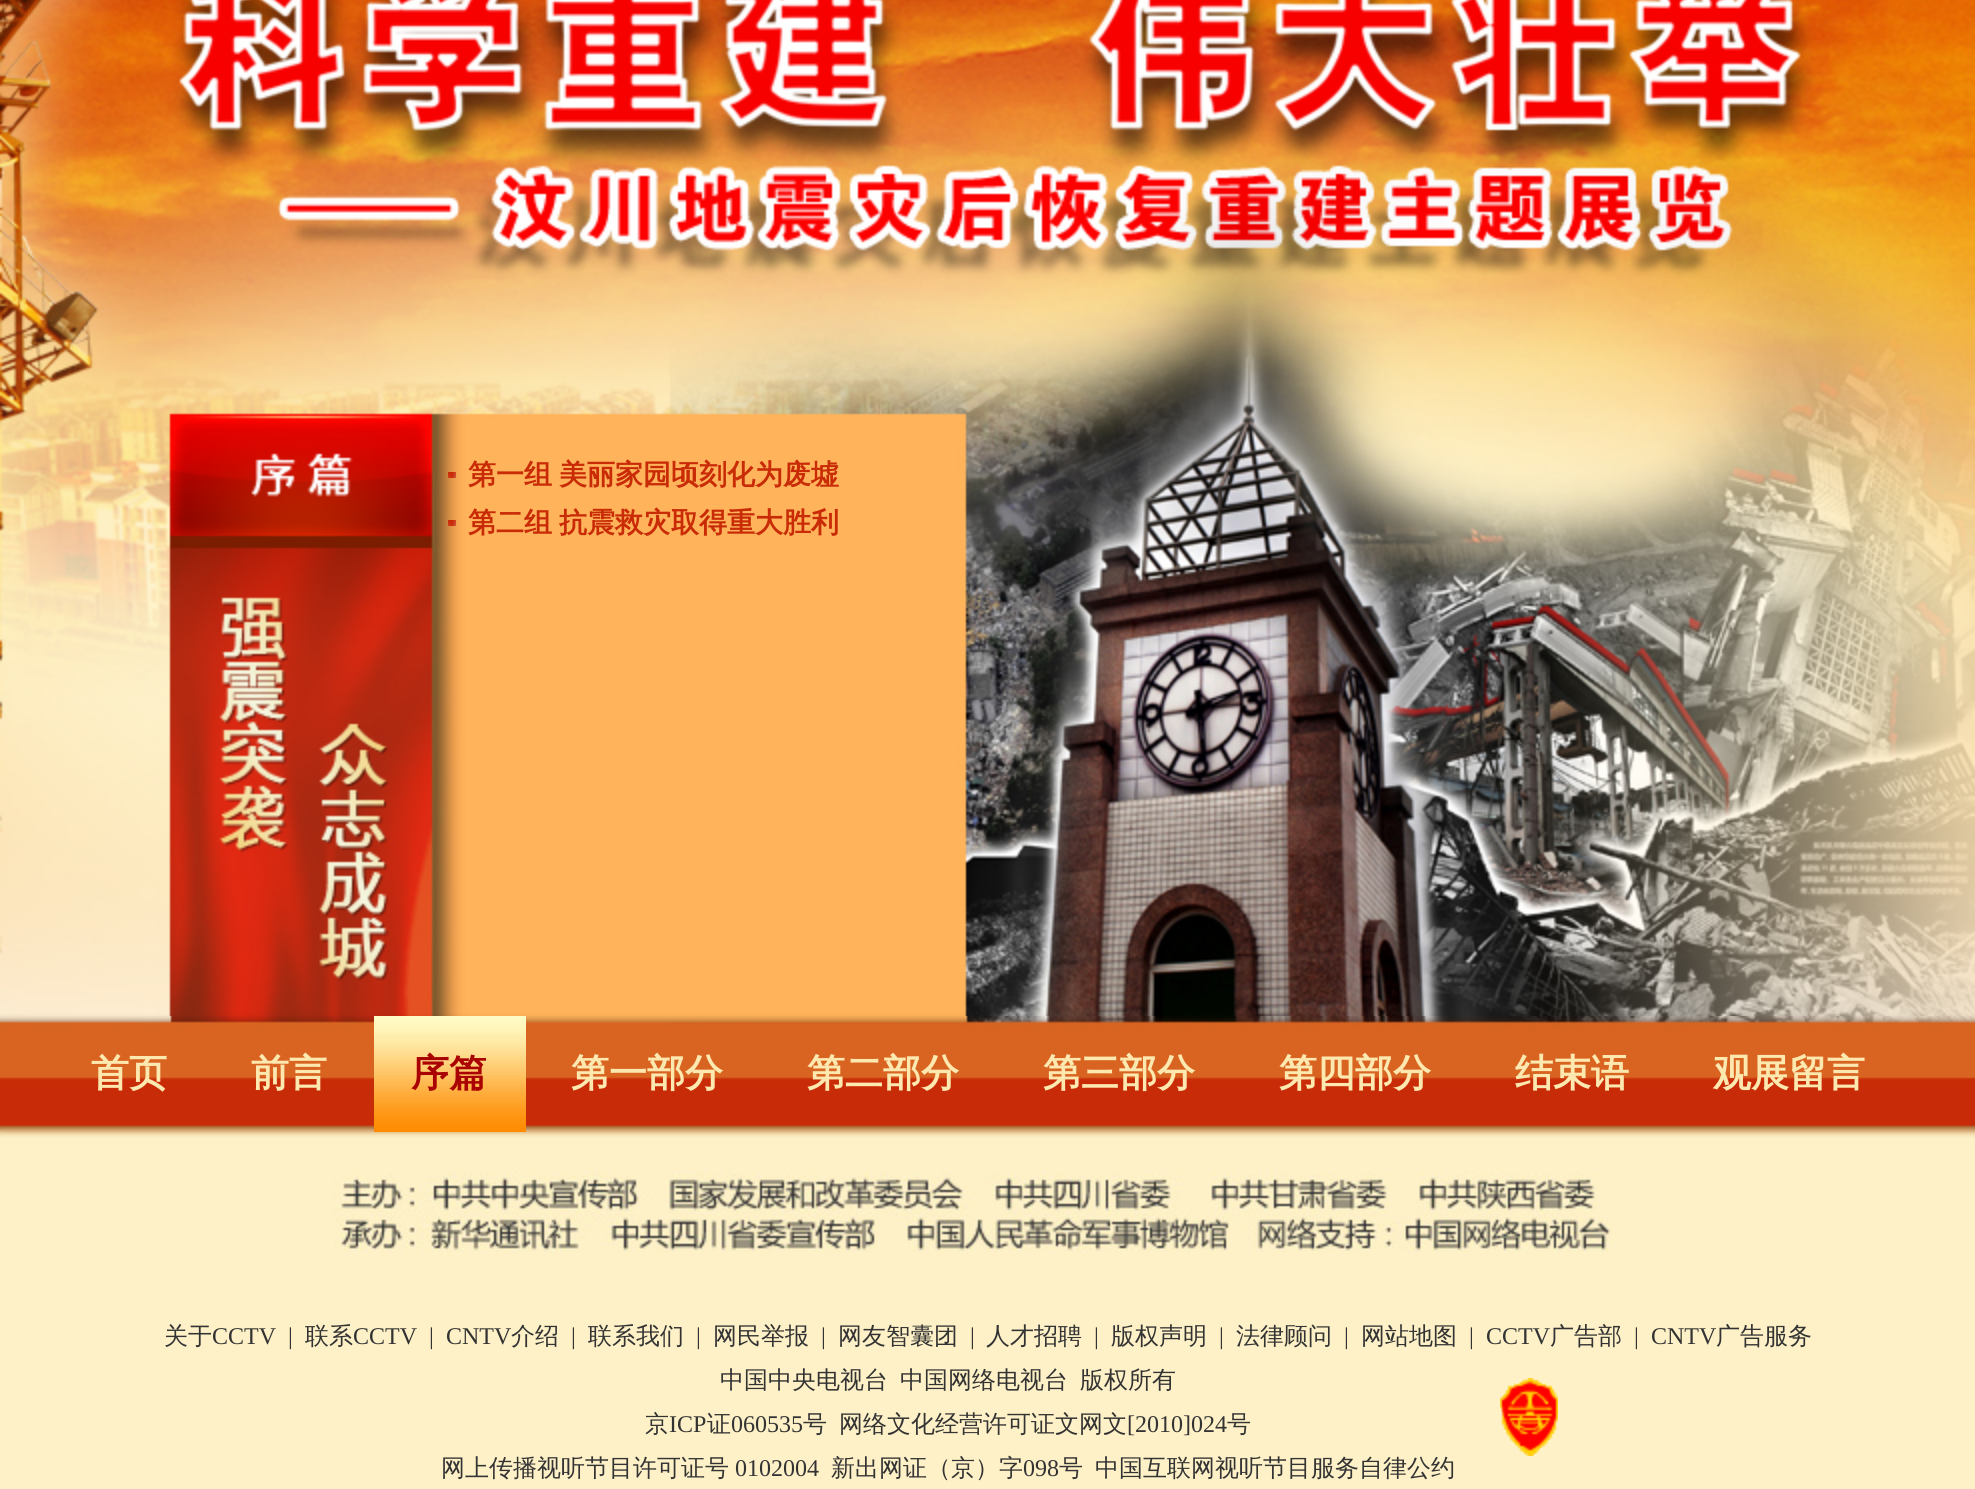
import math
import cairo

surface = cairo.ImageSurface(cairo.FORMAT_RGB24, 1975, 1489)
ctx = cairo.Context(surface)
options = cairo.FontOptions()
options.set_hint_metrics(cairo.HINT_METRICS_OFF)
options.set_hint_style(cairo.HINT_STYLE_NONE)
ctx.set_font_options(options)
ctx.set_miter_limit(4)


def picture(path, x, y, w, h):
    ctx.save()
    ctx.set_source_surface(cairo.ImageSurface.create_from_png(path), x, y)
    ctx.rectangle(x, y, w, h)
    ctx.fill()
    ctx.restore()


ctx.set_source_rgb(0.996, 0.945, 0.78)
ctx.paint()
picture("img1.png", 0, 0, 1975, 1138)
picture("img2.png", 28, 7, 1920, 1009)
picture("img3.png", 448, 472, 8, 6)
ctx.select_font_face("WenQuanYi Zen Hei", cairo.FONT_SLANT_NORMAL, cairo.FONT_WEIGHT_BOLD)
ctx.set_font_size(28)
ctx.set_source_rgb(0.784, 0.169, 0.027)
ctx.move_to(468, 484)
ctx.show_text("第一组")
ctx.move_to(559, 484)
ctx.show_text("美丽家园顷刻化为废墟")
picture("img3.png", 448, 520, 8, 6)
ctx.move_to(468, 532)
ctx.show_text("第二组")
ctx.move_to(559, 532)
ctx.show_text("抗震救灾取得重大胜利")
picture("img4.png", 4, 1016, 1970, 116)
ctx.set_font_size(38)
ctx.set_source_rgb(0.992, 0.91, 0.686)
ctx.move_to(91, 1086)
ctx.show_text("首页")
ctx.move_to(251, 1086)
ctx.show_text("前言")
picture("img5.png", 374, 1016, 152, 116)
ctx.set_source_rgb(0.667, 0.008, 0.008)
ctx.move_to(411, 1086)
ctx.show_text("序篇")
ctx.set_source_rgb(0.992, 0.91, 0.686)
ctx.move_to(571, 1086)
ctx.show_text("第一部分")
ctx.move_to(807, 1086)
ctx.show_text("第二部分")
ctx.move_to(1043, 1086)
ctx.show_text("第三部分")
ctx.move_to(1279, 1086)
ctx.show_text("第四部分")
ctx.move_to(1515, 1086)
ctx.show_text("结束语")
ctx.move_to(1713, 1086)
ctx.show_text("观展留言")
picture("img6.png", 332, 1172, 1280, 80)
ctx.select_font_face("WenQuanYi Zen Hei Medium")
ctx.set_font_size(24)
ctx.set_source_rgb(0.2, 0.2, 0.2)
ctx.move_to(164, 1344)
ctx.show_text("关于")
ctx.select_font_face("Liberation Serif")
ctx.move_to(212, 1344)
ctx.show_text("CCTV")
ctx.move_to(288, 1344)
ctx.show_text("|")
ctx.select_font_face("WenQuanYi Zen Hei Medium")
ctx.move_to(305, 1344)
ctx.show_text("联系")
ctx.select_font_face("Liberation Serif")
ctx.move_to(353, 1344)
ctx.show_text("CCTV")
ctx.move_to(429, 1344)
ctx.show_text("|")
ctx.move_to(446, 1344)
ctx.show_text("CNTV")
ctx.select_font_face("WenQuanYi Zen Hei Medium")
ctx.move_to(511, 1344)
ctx.show_text("介绍")
ctx.select_font_face("Liberation Serif")
ctx.move_to(571, 1344)
ctx.show_text("|")
ctx.select_font_face("WenQuanYi Zen Hei Medium")
ctx.move_to(588, 1344)
ctx.show_text("联系我们")
ctx.select_font_face("Liberation Serif")
ctx.move_to(696, 1344)
ctx.show_text("|")
ctx.select_font_face("WenQuanYi Zen Hei Medium")
ctx.move_to(713, 1344)
ctx.show_text("网民举报")
ctx.select_font_face("Liberation Serif")
ctx.move_to(821, 1344)
ctx.show_text("|")
ctx.select_font_face("WenQuanYi Zen Hei Medium")
ctx.move_to(838, 1344)
ctx.show_text("网友智囊团")
ctx.select_font_face("Liberation Serif")
ctx.move_to(970, 1344)
ctx.show_text("|")
ctx.select_font_face("WenQuanYi Zen Hei Medium")
ctx.move_to(986, 1344)
ctx.show_text("人才招聘")
ctx.select_font_face("Liberation Serif")
ctx.move_to(1094, 1344)
ctx.show_text("|")
ctx.select_font_face("WenQuanYi Zen Hei Medium")
ctx.move_to(1111, 1344)
ctx.show_text("版权声明")
ctx.select_font_face("Liberation Serif")
ctx.move_to(1219, 1344)
ctx.show_text("|")
ctx.select_font_face("WenQuanYi Zen Hei Medium")
ctx.move_to(1236, 1344)
ctx.show_text("法律顾问")
ctx.select_font_face("Liberation Serif")
ctx.move_to(1344, 1344)
ctx.show_text("|")
ctx.select_font_face("WenQuanYi Zen Hei Medium")
ctx.move_to(1361, 1344)
ctx.show_text("网站地图")
ctx.select_font_face("Liberation Serif")
ctx.move_to(1469, 1344)
ctx.show_text("|")
ctx.move_to(1486, 1344)
ctx.show_text("CCTV")
ctx.select_font_face("WenQuanYi Zen Hei Medium")
ctx.move_to(1550, 1344)
ctx.show_text("广告部")
ctx.select_font_face("Liberation Serif")
ctx.move_to(1634, 1344)
ctx.show_text("|")
ctx.move_to(1651, 1344)
ctx.show_text("CNTV")
ctx.select_font_face("WenQuanYi Zen Hei Medium")
ctx.move_to(1716, 1344)
ctx.show_text("广告服务")
ctx.move_to(720, 1388)
ctx.show_text("中国中央电视台")
ctx.move_to(900, 1388)
ctx.show_text("中国网络电视台")
ctx.move_to(1080, 1388)
ctx.show_text("版权所有")
ctx.move_to(645, 1432)
ctx.show_text("京")
ctx.select_font_face("Liberation Serif")
ctx.move_to(669, 1432)
ctx.show_text("ICP")
ctx.select_font_face("WenQuanYi Zen Hei Medium")
ctx.move_to(707, 1432)
ctx.show_text("证")
ctx.select_font_face("Liberation Serif")
ctx.move_to(731, 1432)
ctx.show_text("060535")
ctx.select_font_face("WenQuanYi Zen Hei Medium")
ctx.move_to(803, 1432)
ctx.show_text("号")
ctx.move_to(839, 1432)
ctx.show_text("网络文化经营许可证文网文")
ctx.select_font_face("Liberation Serif")
ctx.move_to(1127, 1432)
ctx.show_text("[2010]024")
ctx.select_font_face("WenQuanYi Zen Hei Medium")
ctx.move_to(1227, 1432)
ctx.show_text("号")
ctx.move_to(441, 1476)
ctx.show_text("网上传播视听节目许可证号")
ctx.select_font_face("Liberation Serif")
ctx.move_to(735, 1476)
ctx.show_text("0102004")
ctx.select_font_face("WenQuanYi Zen Hei Medium")
ctx.move_to(831, 1476)
ctx.show_text("新出网证（京）字")
ctx.select_font_face("Liberation Serif")
ctx.move_to(1023, 1476)
ctx.show_text("098")
ctx.select_font_face("WenQuanYi Zen Hei Medium")
ctx.move_to(1059, 1476)
ctx.show_text("号")
ctx.move_to(1095, 1476)
ctx.show_text("中国互联网视听节目服务自律公约")
picture("img7.png", 1500, 1378, 58, 78)
surface.write_to_png("page.png")
